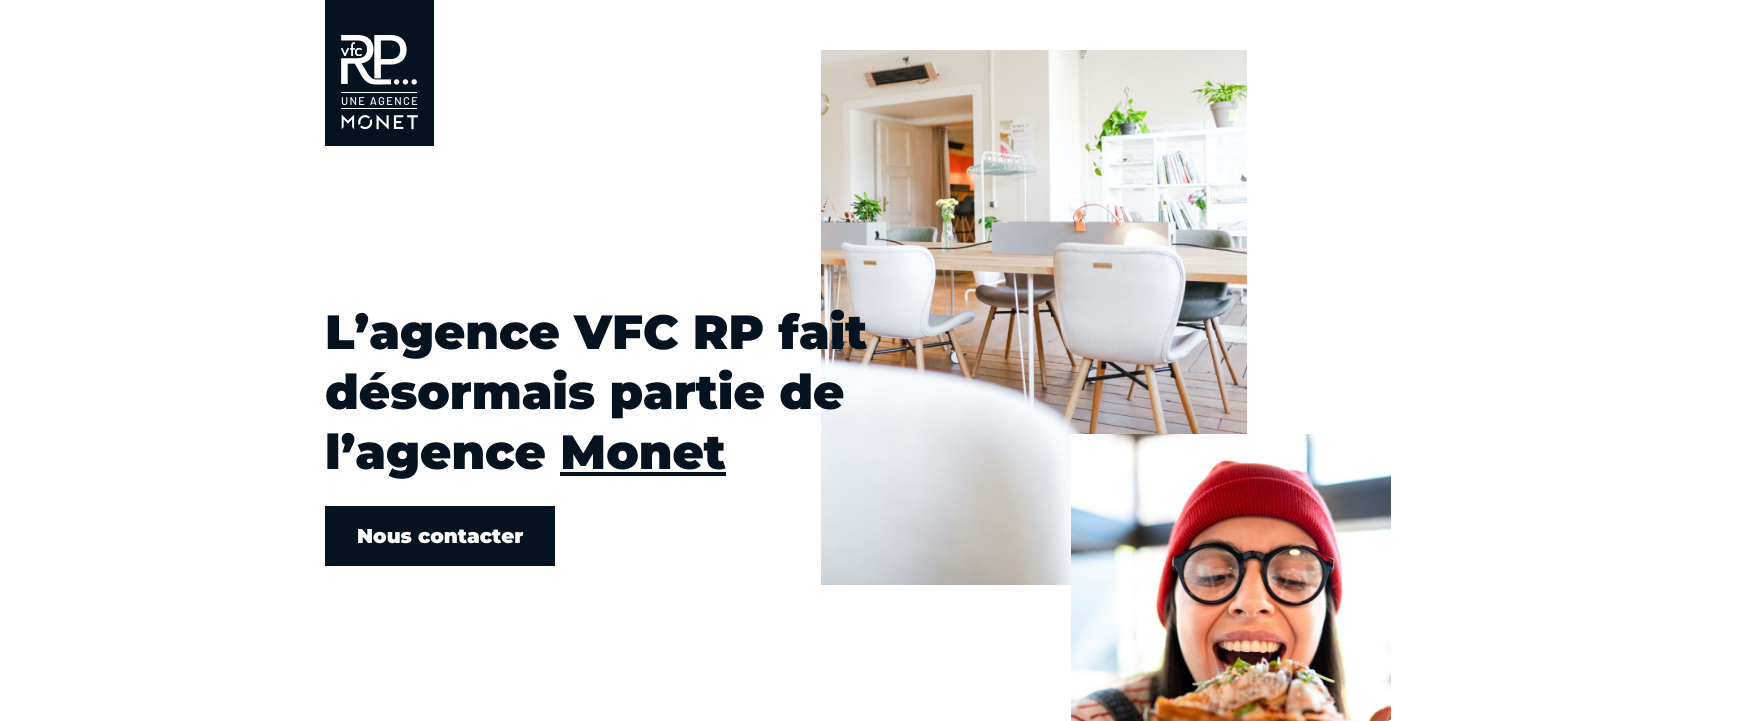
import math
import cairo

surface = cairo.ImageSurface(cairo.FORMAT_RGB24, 1764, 721)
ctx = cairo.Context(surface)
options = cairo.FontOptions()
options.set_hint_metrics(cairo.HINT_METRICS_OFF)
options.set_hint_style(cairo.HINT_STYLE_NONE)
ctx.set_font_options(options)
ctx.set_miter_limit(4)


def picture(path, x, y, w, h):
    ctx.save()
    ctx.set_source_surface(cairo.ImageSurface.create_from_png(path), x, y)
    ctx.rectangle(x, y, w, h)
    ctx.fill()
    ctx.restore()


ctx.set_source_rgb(1, 1, 1)
ctx.paint()
picture("img1.png", 325, 0, 109, 146)
picture("img2.png", 821, 50, 426, 535)
ctx.select_font_face("Montserrat Black")
ctx.set_font_size(48)
ctx.set_source_rgb(0.02, 0.071, 0.122)
ctx.move_to(325, 349)
ctx.show_text("L’agence VFC RP fait")
ctx.move_to(325, 409)
ctx.show_text("désormais partie de")
ctx.move_to(325, 469)
ctx.show_text("l’agence Monet")
ctx.rectangle(560, 472, 166, 4)
ctx.fill()
ctx.rectangle(325, 506, 230, 60)
ctx.fill()
ctx.set_font_size(20)
ctx.set_source_rgb(1, 1, 1)
ctx.move_to(357, 543)
ctx.show_text("Nous contacter")
picture("img3.png", 1071, 434, 320, 287)
surface.write_to_png("page.png")
